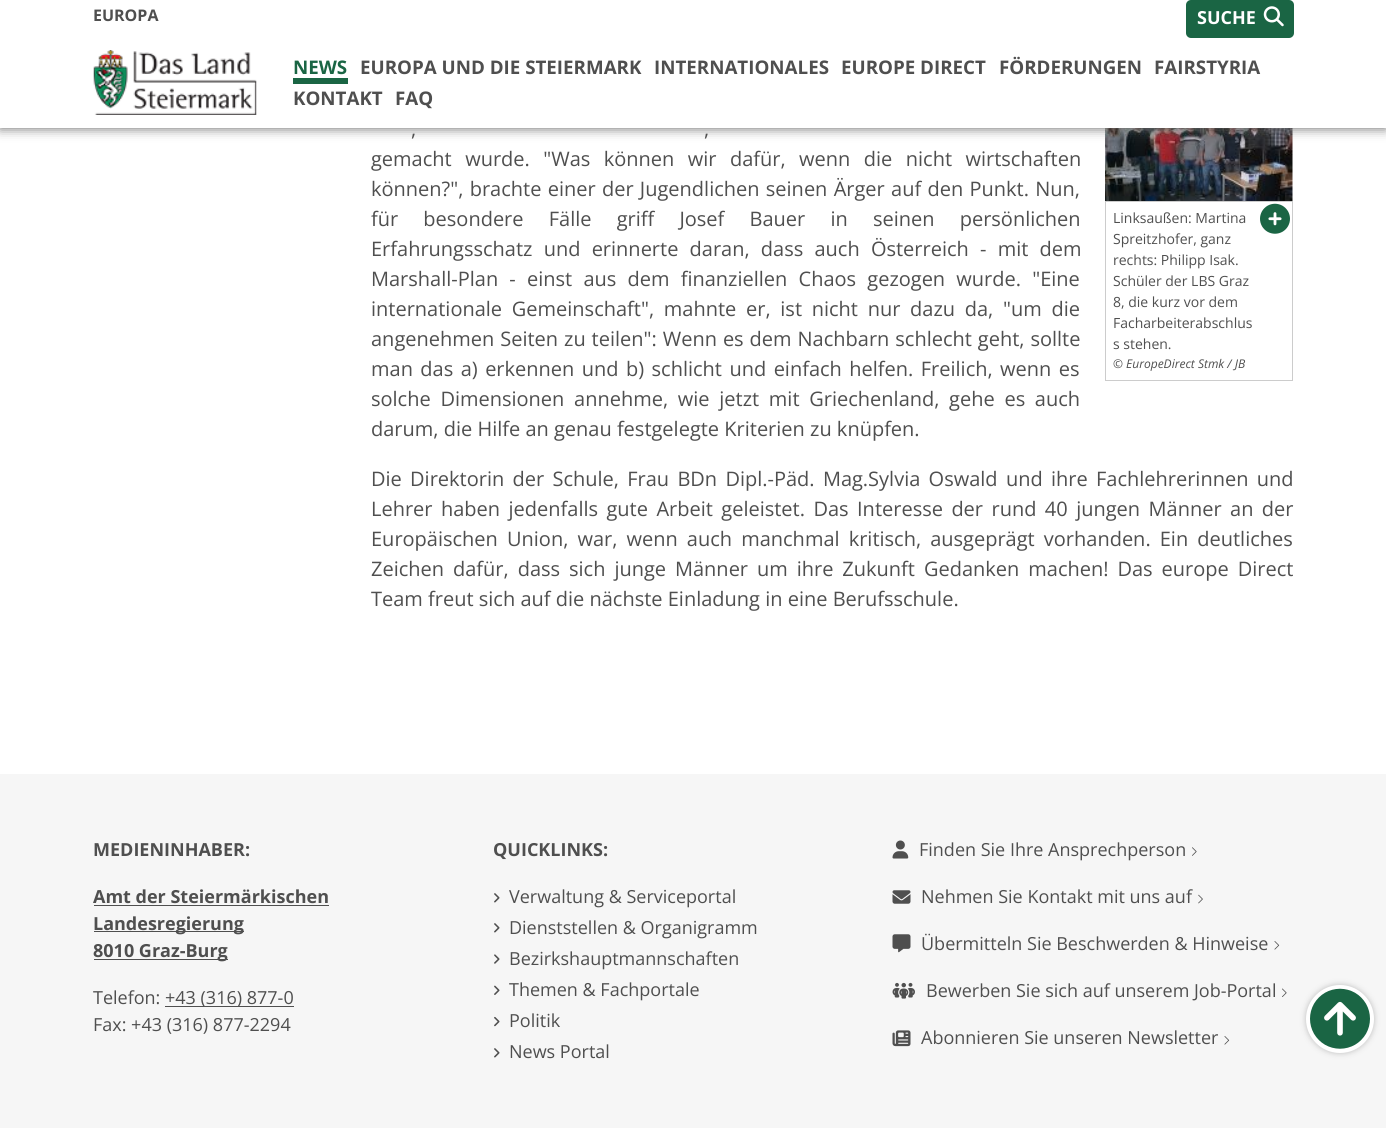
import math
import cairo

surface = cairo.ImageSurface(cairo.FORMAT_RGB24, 1386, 1128)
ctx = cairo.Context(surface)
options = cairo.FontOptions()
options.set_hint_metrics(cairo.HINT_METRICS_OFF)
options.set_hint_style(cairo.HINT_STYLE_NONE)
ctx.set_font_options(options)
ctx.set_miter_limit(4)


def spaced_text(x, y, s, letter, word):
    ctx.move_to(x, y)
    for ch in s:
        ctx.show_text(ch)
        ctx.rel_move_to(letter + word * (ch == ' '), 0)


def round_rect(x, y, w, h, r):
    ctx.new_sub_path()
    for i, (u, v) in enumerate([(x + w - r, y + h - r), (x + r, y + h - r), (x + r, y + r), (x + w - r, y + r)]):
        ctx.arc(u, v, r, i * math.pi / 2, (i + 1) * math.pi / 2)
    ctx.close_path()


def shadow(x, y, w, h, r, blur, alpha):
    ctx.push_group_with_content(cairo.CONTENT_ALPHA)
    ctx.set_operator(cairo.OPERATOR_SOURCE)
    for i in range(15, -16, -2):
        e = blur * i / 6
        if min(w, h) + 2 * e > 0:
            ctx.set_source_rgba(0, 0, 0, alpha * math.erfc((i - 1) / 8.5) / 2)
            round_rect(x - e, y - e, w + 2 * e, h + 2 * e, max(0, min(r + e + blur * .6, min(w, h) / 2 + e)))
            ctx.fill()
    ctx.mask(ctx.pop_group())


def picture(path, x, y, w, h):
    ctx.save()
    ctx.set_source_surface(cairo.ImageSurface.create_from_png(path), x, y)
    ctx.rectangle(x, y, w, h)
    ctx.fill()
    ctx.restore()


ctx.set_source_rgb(1, 1, 1)
ctx.paint()
picture("img3.png", 1105, 128, 188, 73)
ctx.set_source_rgb(0.396, 0.396, 0.396)
shadow(0, 0, 1386, 128, 0, 6, 1)
ctx.set_source_rgb(1, 1, 1)
ctx.rectangle(0, 0, 1386, 128)
ctx.fill()
ctx.select_font_face("Open Sans", cairo.FONT_SLANT_NORMAL, cairo.FONT_WEIGHT_BOLD)
ctx.set_font_size(16)
ctx.set_source_rgb(0.31, 0.31, 0.31)
ctx.move_to(93, 21)
ctx.show_text("EUROPA")
ctx.set_source_rgb(0.102, 0.396, 0.267)
round_rect(1186, 0, 108, 38, 5)
ctx.fill()
ctx.set_font_size(18)
ctx.set_source_rgb(1, 1, 1)
ctx.move_to(1197, 24)
ctx.show_text("SUCHE")
picture("img1.png", 1263, 6, 21, 21)
picture("img2.png", 93, 50, 164, 65)
ctx.set_font_size(18.75)
ctx.set_source_rgb(0.102, 0.396, 0.267)
ctx.move_to(293, 74)
ctx.show_text("NEWS")
ctx.rectangle(293, 78, 55, 6)
ctx.fill()
ctx.set_source_rgb(0.31, 0.31, 0.31)
ctx.move_to(360, 74)
ctx.show_text("EUROPA UND DIE STEIERMARK")
ctx.move_to(654, 74)
ctx.show_text("INTERNATIONALES")
ctx.move_to(841, 74)
ctx.show_text("EUROPE DIRECT")
ctx.move_to(999, 74)
ctx.show_text("FÖRDERUNGEN")
ctx.move_to(1154, 74)
ctx.show_text("FAIRSTYRIA")
ctx.move_to(293, 105)
ctx.show_text("KONTAKT")
ctx.move_to(395, 105)
ctx.show_text("FAQ")
ctx.select_font_face("Open Sans")
ctx.set_font_size(20)
spaced_text(411, 136, ",", 0, 2)
spaced_text(704, 136, ",", 0, 2)
spaced_text(371, 166, "gemacht wurde. \"Was können wir dafür, wenn die nicht wirtschaften", 0, 8.25)
spaced_text(371, 196, "können?\", brachte einer der Jugendlichen seinen Ärger auf den Punkt. Nun,", 0, 1.1)
spaced_text(371, 226, "für besondere Fälle griff Josef Bauer in seinen persönlichen", 0, 20)
spaced_text(371, 256, "Erfahrungsschatz und erinnerte daran, dass auch Österreich - mit dem", 0, 6)
spaced_text(371, 286, "Marshall-Plan - einst aus dem finanziellen Chaos gezogen wurde. \"Eine", 0, 6)
spaced_text(371, 316, "internationale Gemeinschaft\", mahnte er, ist nicht nur dazu da, \"um die", 0, 4.5)
spaced_text(371, 346, "angenehmen Seiten zu teilen\": Wenn es dem Nachbarn schlecht geht, sollte", 0, 0.75)
spaced_text(371, 376, "man das a) erkennen und b) schlicht und einfach helfen. Freilich, wenn es", 0, 2.25)
spaced_text(371, 406, "solche Dimensionen annehme, wie jetzt mit Griechenland, gehe es auch", 0, 4.5)
ctx.move_to(371, 436)
ctx.show_text("darum, die Hilfe an genau festgelegte Kriterien zu knüpfen.")
ctx.rectangle(1105.5, 201.5, 187, 179)
ctx.set_source_rgb(0.8, 0.8, 0.8)
ctx.set_line_width(1)
ctx.stroke()
ctx.set_font_size(14)
ctx.set_source_rgb(0.31, 0.31, 0.31)
ctx.move_to(1113, 223)
ctx.show_text("Linksaußen: Martina")
picture("img4.png", 1260, 203, 30, 31)
ctx.move_to(1113, 244)
ctx.show_text("Spreitzhofer, ganz")
ctx.move_to(1113, 265)
ctx.show_text("rechts: Philipp Isak.")
ctx.move_to(1113, 286)
ctx.show_text("Schüler der LBS Graz")
ctx.move_to(1113, 307)
ctx.show_text("8, die kurz vor dem")
ctx.move_to(1113, 328)
ctx.show_text("Facharbeiterabschlus")
ctx.move_to(1113, 349)
ctx.show_text("s stehen.")
ctx.select_font_face("Open Sans", cairo.FONT_SLANT_ITALIC)
ctx.set_font_size(12)
ctx.move_to(1113, 368)
ctx.show_text("© EuropeDirect Stmk / JB")
ctx.select_font_face("Open Sans")
ctx.set_font_size(20)
spaced_text(371, 486, "Die Direktorin der Schule, Frau BDn Dipl.-Päd. Mag.Sylvia Oswald und ihre Fachlehrerinnen und", 0, 3.1)
spaced_text(371, 516, "Lehrer haben jedenfalls gute Arbeit geleistet. Das Interesse der rund 40 jungen Männer an der", 0, 3.25)
spaced_text(371, 546, "Europäischen Union, war, wenn auch manchmal kritisch, ausgeprägt vorhanden. Ein deutliches", 0, 3.9)
spaced_text(371, 576, "Zeichen dafür, dass sich junge Männer um ihre Zukunft Gedanken machen! Das europe Direct", 0, 3.75)
ctx.move_to(371, 606)
ctx.show_text("Team freut sich auf die nächste Einladung in eine Berufsschule.")
ctx.set_source_rgb(0.961, 0.961, 0.961)
ctx.rectangle(0, 774, 1386, 354)
ctx.fill()
ctx.select_font_face("Open Sans", cairo.FONT_SLANT_NORMAL, cairo.FONT_WEIGHT_BOLD)
ctx.set_font_size(18)
ctx.set_source_rgb(0.31, 0.31, 0.31)
ctx.move_to(93, 856)
ctx.show_text("MEDIENINHABER:")
ctx.move_to(93, 903)
ctx.show_text("Amt der Steiermärkischen")
ctx.rectangle(94, 905, 235, 1)
ctx.fill()
ctx.rectangle(94, 931, 150, 1)
ctx.fill()
ctx.move_to(93, 930)
ctx.show_text("Landesregierung")
ctx.rectangle(94, 959, 134, 1)
ctx.fill()
ctx.move_to(93, 957)
ctx.show_text("8010 Graz-Burg")
ctx.select_font_face("Open Sans")
ctx.move_to(93, 1004)
ctx.show_text("Telefon:")
ctx.rectangle(165, 1006, 129, 1)
ctx.fill()
ctx.move_to(165, 1004)
ctx.show_text("+43 (316) 877-0")
ctx.move_to(93, 1031)
ctx.show_text("Fax: +43 (316) 877-2294")
ctx.select_font_face("Open Sans", cairo.FONT_SLANT_NORMAL, cairo.FONT_WEIGHT_BOLD)
ctx.move_to(493, 856)
ctx.show_text("QUICKLINKS:")
picture("img5.png", 494, 893, 6, 10)
ctx.select_font_face("Open Sans")
ctx.move_to(509, 903)
ctx.show_text("Verwaltung & Serviceportal")
picture("img5.png", 494, 923, 6, 10)
ctx.move_to(509, 934)
ctx.show_text("Dienststellen & Organigramm")
picture("img6.png", 494, 954, 6, 10)
ctx.move_to(509, 965)
ctx.show_text("Bezirkshauptmannschaften")
picture("img7.png", 494, 985, 6, 10)
ctx.move_to(509, 996)
ctx.show_text("Themen & Fachportale")
picture("img8.png", 494, 1016, 6, 11)
ctx.move_to(509, 1027)
ctx.show_text("Politik")
picture("img5.png", 494, 1048, 6, 10)
ctx.move_to(509, 1058)
ctx.show_text("News Portal")
picture("img9.png", 892, 840, 17, 19)
ctx.move_to(919, 856)
ctx.show_text("Finden Sie Ihre Ansprechperson")
picture("img10.png", 1192, 847, 5, 9)
picture("img11.png", 892, 890, 19, 14)
ctx.move_to(921, 903)
ctx.show_text("Nehmen Sie Kontakt mit uns auf")
picture("img12.png", 1198, 894, 5, 10)
picture("img13.png", 892, 934, 19, 19)
ctx.move_to(921, 950)
ctx.show_text("Übermitteln Sie Beschwerden & Hinweise")
picture("img14.png", 1274, 941, 6, 9)
picture("img15.png", 892, 982, 23, 17)
ctx.move_to(926, 997)
ctx.show_text("Bewerben Sie sich auf unserem Job-Portal")
picture("img16.png", 1282, 988, 5, 9)
picture("img17.png", 892, 1030, 19, 17)
ctx.move_to(921, 1044)
ctx.show_text("Abonnieren Sie unseren Newsletter")
picture("img14.png", 1224, 1036, 6, 9)
ctx.set_source_rgb(0.737, 0.737, 0.737)
shadow(1306, 985, 68, 68, 34, 3, 1)
ctx.set_source_rgb(1, 1, 1)
ctx.arc(1340, 1019, 32, 0, 2 * math.pi)
ctx.fill_preserve()
ctx.set_line_width(4)
ctx.stroke()
picture("img18.png", 1310, 988, 60, 61)
surface.write_to_png("page.png")
